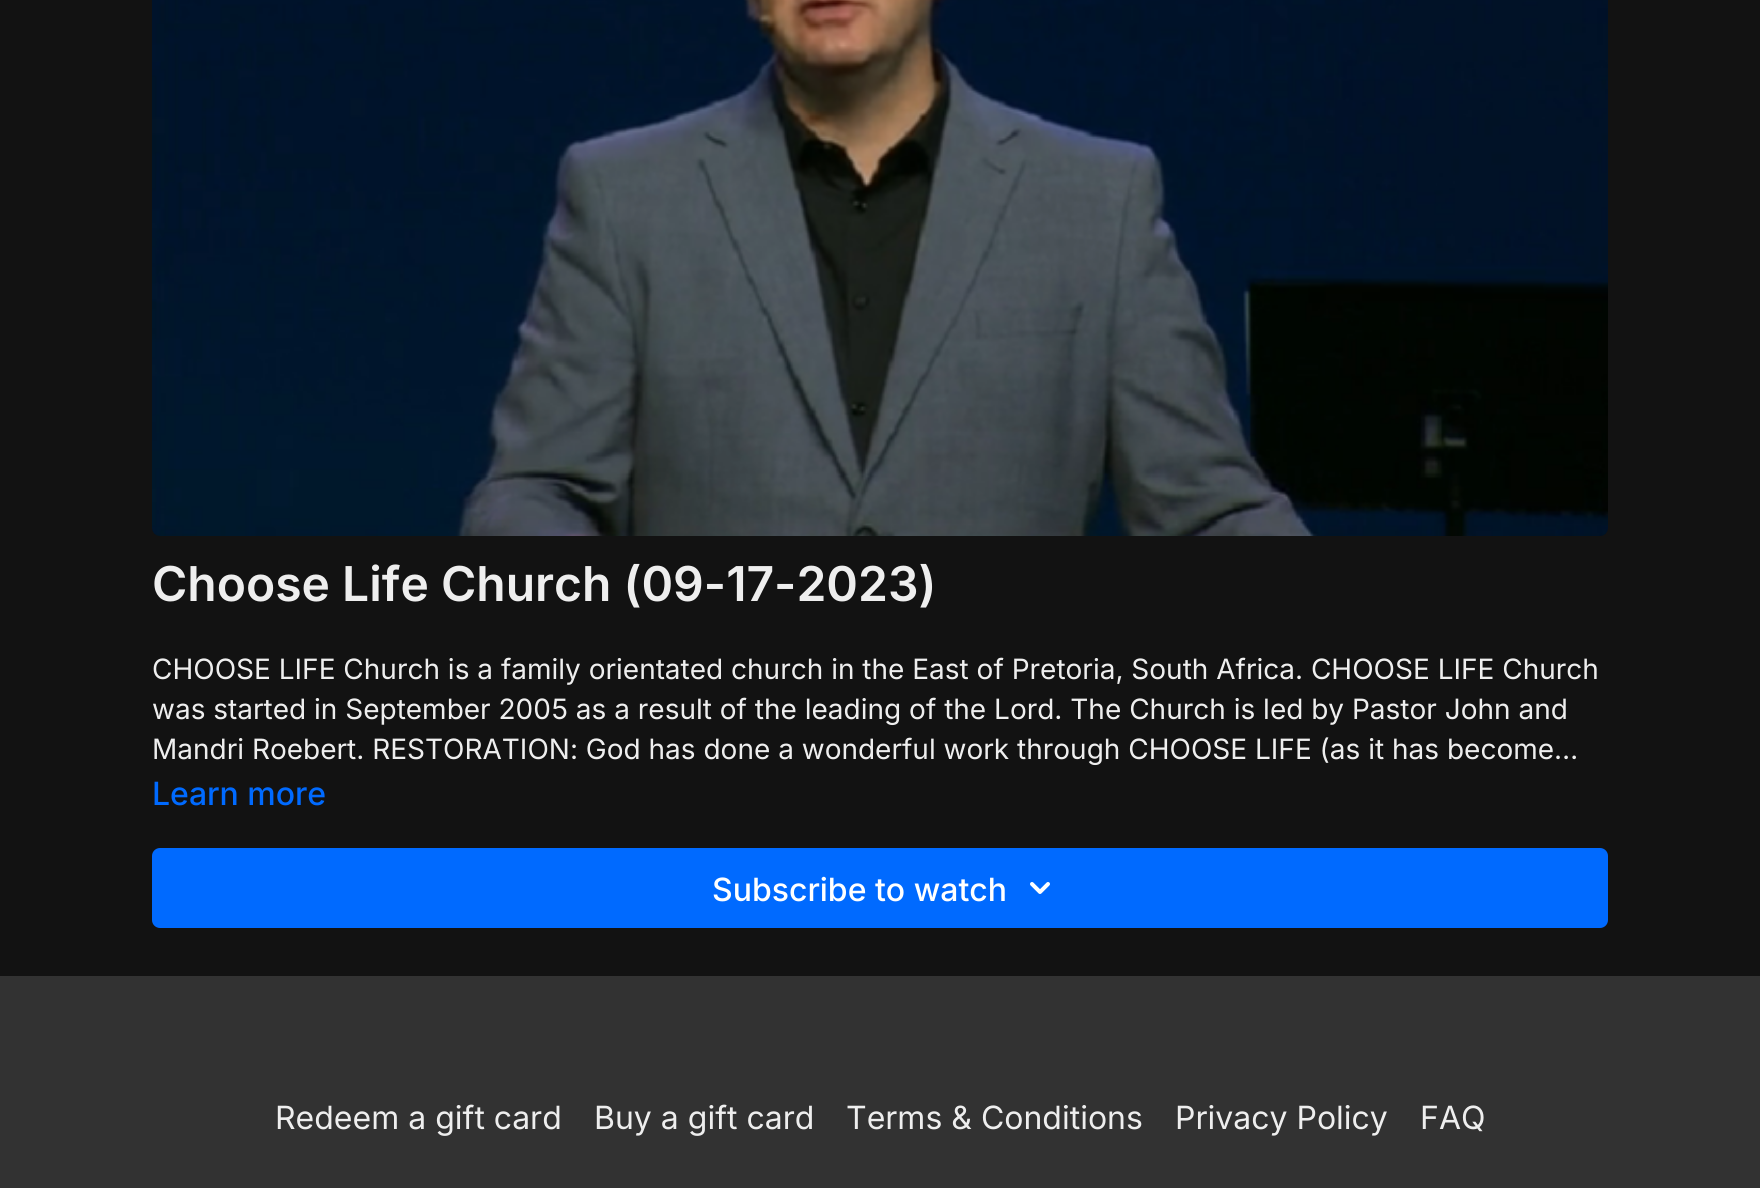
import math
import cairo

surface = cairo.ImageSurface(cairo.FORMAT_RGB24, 1760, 1188)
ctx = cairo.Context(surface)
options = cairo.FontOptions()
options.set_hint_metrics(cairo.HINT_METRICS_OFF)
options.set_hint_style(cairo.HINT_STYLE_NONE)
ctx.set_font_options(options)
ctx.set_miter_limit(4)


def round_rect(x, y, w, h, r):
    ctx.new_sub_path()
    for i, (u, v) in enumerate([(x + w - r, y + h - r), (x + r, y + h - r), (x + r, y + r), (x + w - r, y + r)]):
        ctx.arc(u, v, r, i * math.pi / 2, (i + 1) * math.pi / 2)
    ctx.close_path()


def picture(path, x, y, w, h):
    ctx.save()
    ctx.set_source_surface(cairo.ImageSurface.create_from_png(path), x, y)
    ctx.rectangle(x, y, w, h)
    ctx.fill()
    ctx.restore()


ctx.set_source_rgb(0.071, 0.071, 0.071)
ctx.paint()
picture("img1.png", 152, 0, 1456, 536)
ctx.select_font_face("Inter SemiBold")
ctx.set_font_size(48)
ctx.set_source_rgb(0.933, 0.933, 0.933)
ctx.move_to(152, 601)
ctx.show_text("Choose Life Church (09-17-2023)")
ctx.select_font_face("Inter")
ctx.set_font_size(28)
ctx.move_to(152, 679)
ctx.show_text("CHOOSE LIFE Church is a family orientated church in the East of Pretoria, South Africa. CHOOSE LIFE Church")
ctx.move_to(152, 719)
ctx.show_text("was started in September 2005 as a result of the leading of the Lord. The Church is led by Pastor John and")
ctx.move_to(152, 759)
ctx.show_text("Mandri Roebert. RESTORATION: God has done a wonderful work through CHOOSE LIFE (as it has become…")
ctx.select_font_face("Inter Medium")
ctx.set_font_size(32)
ctx.set_source_rgb(0, 0.416, 1)
ctx.move_to(152, 805)
ctx.show_text("Learn more")
round_rect(152, 848, 1456, 80, 8)
ctx.fill()
ctx.set_source_rgb(1, 1, 1)
ctx.move_to(712, 901)
ctx.show_text("Subscribe to watch")
picture("img2.png", 1030, 882, 20, 12)
ctx.set_source_rgb(0.196, 0.196, 0.196)
ctx.rectangle(0, 976, 1760, 212)
ctx.fill()
ctx.select_font_face("Inter")
ctx.set_source_rgb(0.933, 0.933, 0.933)
ctx.move_to(275, 1129)
ctx.show_text("Redeem a gift card")
ctx.move_to(594, 1129)
ctx.show_text("Buy a gift card")
ctx.move_to(846, 1129)
ctx.show_text("Terms & Conditions")
ctx.move_to(1175, 1129)
ctx.show_text("Privacy Policy")
ctx.move_to(1420, 1129)
ctx.show_text("FAQ")
surface.write_to_png("page.png")
